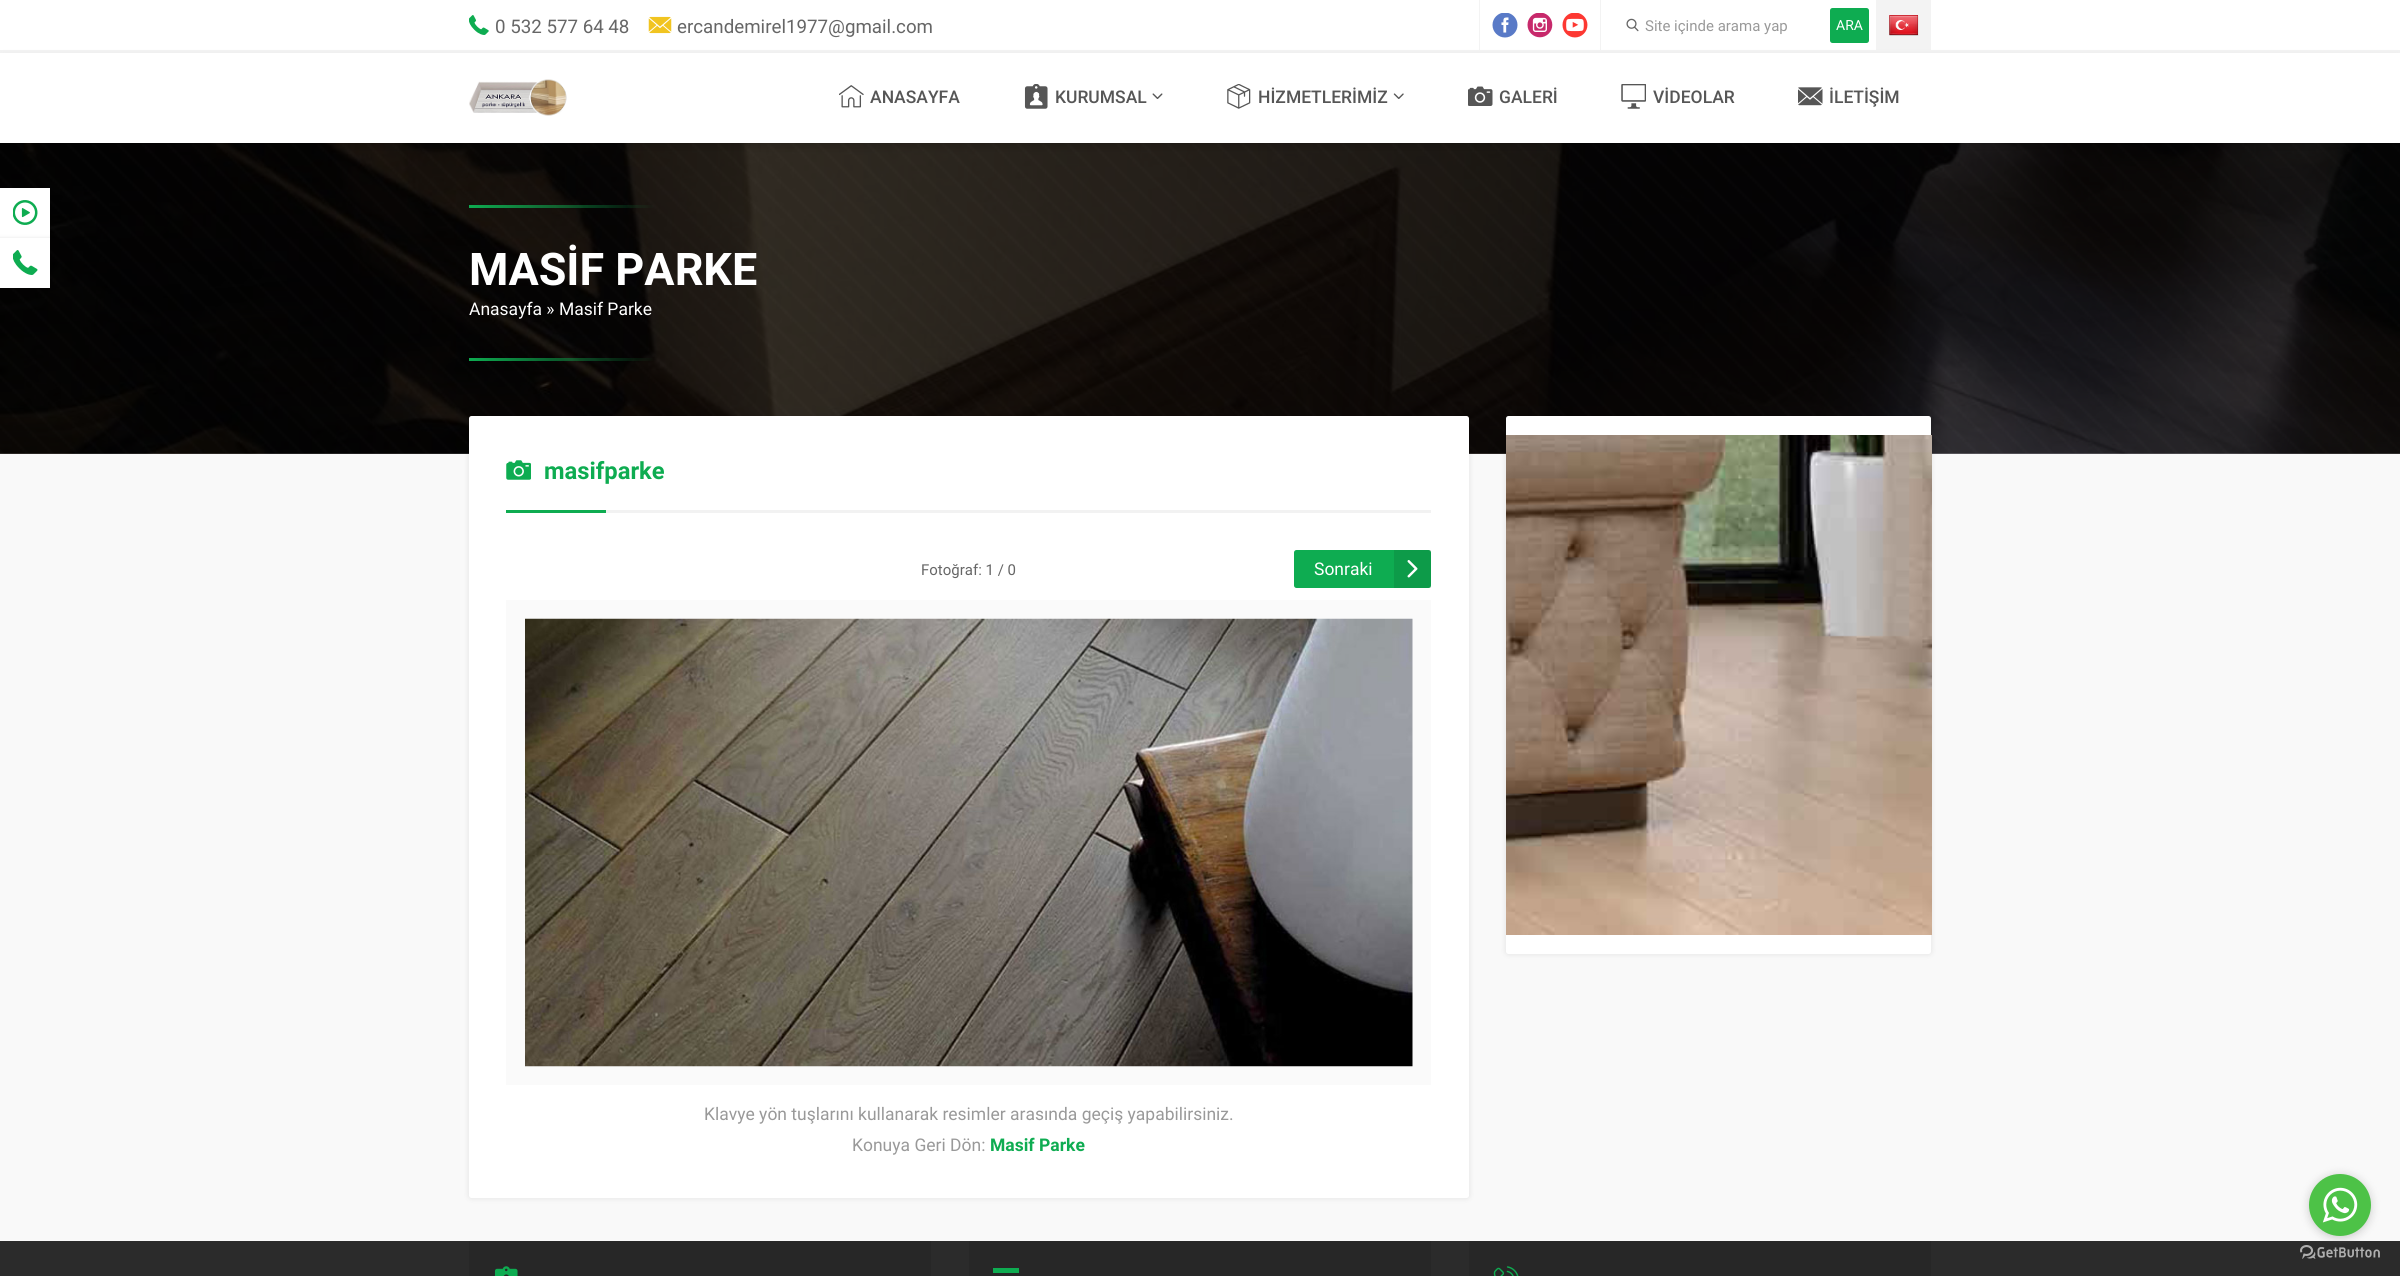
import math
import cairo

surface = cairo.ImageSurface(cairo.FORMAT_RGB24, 2400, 1276)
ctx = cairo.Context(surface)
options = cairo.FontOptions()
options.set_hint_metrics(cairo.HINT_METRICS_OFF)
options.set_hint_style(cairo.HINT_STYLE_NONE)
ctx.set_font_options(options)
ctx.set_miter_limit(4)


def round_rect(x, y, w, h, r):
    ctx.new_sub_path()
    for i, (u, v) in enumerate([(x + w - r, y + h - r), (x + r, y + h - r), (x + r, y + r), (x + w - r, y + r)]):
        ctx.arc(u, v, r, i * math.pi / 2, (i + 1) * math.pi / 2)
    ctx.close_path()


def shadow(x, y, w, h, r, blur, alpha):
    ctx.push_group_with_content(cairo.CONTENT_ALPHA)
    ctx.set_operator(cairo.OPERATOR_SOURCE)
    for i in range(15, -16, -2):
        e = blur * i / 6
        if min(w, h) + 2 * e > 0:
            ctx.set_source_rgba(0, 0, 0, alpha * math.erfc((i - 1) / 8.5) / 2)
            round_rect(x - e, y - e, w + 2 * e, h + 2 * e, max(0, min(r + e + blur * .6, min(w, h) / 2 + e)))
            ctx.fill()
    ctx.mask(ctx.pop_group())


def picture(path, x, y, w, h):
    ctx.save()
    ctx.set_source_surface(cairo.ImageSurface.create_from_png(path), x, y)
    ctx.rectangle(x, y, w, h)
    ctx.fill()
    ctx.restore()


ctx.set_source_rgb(0.976, 0.976, 0.976)
ctx.paint()
ctx.set_source_rgb(1, 1, 1)
ctx.rectangle(0, 0, 2400, 50)
ctx.fill()
ctx.set_source_rgb(0.953, 0.953, 0.953)
ctx.rectangle(0, 50, 2400, 3)
ctx.fill()
picture("img1.png", 469, 15, 20, 20)
ctx.select_font_face("Roboto")
ctx.set_font_size(18.75)
ctx.set_source_rgb(0.4, 0.4, 0.4)
ctx.move_to(495, 33)
ctx.show_text("0 532 577 64 48")
picture("img2.png", 648, 16, 24, 18)
ctx.move_to(677, 33)
ctx.show_text("ercandemirel1977@gmail.com")
ctx.set_source_rgb(0.953, 0.953, 0.953)
ctx.rectangle(1479, 0, 1, 50)
ctx.fill()
picture("img3.png", 1492, 13, 26, 25)
picture("img4.png", 1527, 13, 26, 25)
picture("img5.png", 1562, 13, 26, 25)
ctx.rectangle(1600, 0, 1, 50)
ctx.fill()
picture("img6.png", 1626, 18, 13, 14)
ctx.set_font_size(15)
ctx.set_source_rgb(0.6, 0.6, 0.6)
ctx.move_to(1645, 31)
ctx.show_text("Site içinde arama yap")
ctx.set_source_rgb(0.055, 0.675, 0.318)
round_rect(1830, 8, 39, 35, 2.5)
ctx.fill()
ctx.set_font_size(14)
ctx.set_source_rgb(1, 1, 1)
ctx.move_to(1836, 30)
ctx.show_text("ARA")
ctx.set_source_rgb(0.953, 0.953, 0.953)
ctx.rectangle(1876, 0, 55, 50)
ctx.fill()
picture("img7.png", 1889, 15, 30, 21)
picture("img19.png", 0, 143, 2400, 311)
picture("img20.png", 0, 143, 2400, 311)
ctx.set_source_rgb(0, 0, 0)
shadow(3, 60, 2395, 85, 0, 5, 0.2)
ctx.set_source_rgb(1, 1, 1)
ctx.rectangle(0, 53, 2400, 90)
ctx.fill()
picture("img8.png", 469, 79, 98, 37)
picture("img9.png", 839, 85, 25, 23)
ctx.select_font_face("Roboto Medium")
ctx.set_font_size(17.5)
ctx.set_source_rgb(0.337, 0.337, 0.337)
ctx.move_to(870, 103)
ctx.show_text("ANASAYFA")
picture("img10.png", 1024, 84, 24, 25)
ctx.move_to(1055, 103)
ctx.show_text("KURUMSAL")
picture("img11.png", 1152, 93, 11, 6)
picture("img12.png", 1227, 84, 24, 25)
ctx.move_to(1258, 103)
ctx.show_text("HİZMETLERİMİZ")
picture("img13.png", 1393, 93, 11, 6)
picture("img14.png", 1468, 86, 25, 20)
ctx.move_to(1499, 103)
ctx.show_text("GALERİ")
picture("img15.png", 1621, 84, 25, 25)
ctx.move_to(1653, 103)
ctx.show_text("VİDEOLAR")
picture("img16.png", 1798, 87, 25, 19)
ctx.move_to(1829, 103)
ctx.show_text("İLETİŞİM")
ctx.set_source_rgb(1, 1, 1)
ctx.rectangle(0, 188, 50, 50)
ctx.fill()
picture("img17.png", 13, 200, 25, 25)
ctx.set_source_rgb(0, 0, 0)
shadow(-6, 238, 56, 50, 0, 2, 0.1)
ctx.set_source_rgb(1, 1, 1)
ctx.rectangle(0, 238, 50, 50)
ctx.fill()
picture("img18.png", 13, 250, 25, 25)
gradient = cairo.LinearGradient(469, 206, 656, 206)
gradient.add_color_stop_rgba(0, 0.055, 0.675, 0.318, 1)
gradient.add_color_stop_rgba(1, 0.055, 0.675, 0.318, 0)
ctx.set_source(gradient)
ctx.rectangle(469, 205, 187, 3)
ctx.fill()
ctx.select_font_face("Roboto", cairo.FONT_SLANT_NORMAL, cairo.FONT_WEIGHT_BOLD)
ctx.set_font_size(45)
ctx.set_source_rgb(1, 1, 1)
ctx.move_to(469, 285)
ctx.show_text("MASİF PARKE")
ctx.select_font_face("Roboto")
ctx.set_font_size(17.5)
ctx.move_to(469, 315)
ctx.show_text("Anasayfa » Masif Parke")
gradient = cairo.LinearGradient(469, 359, 656, 359)
gradient.add_color_stop_rgba(0, 0.055, 0.675, 0.318, 1)
gradient.add_color_stop_rgba(1, 0.055, 0.675, 0.318, 0)
ctx.set_source(gradient)
ctx.rectangle(469, 358, 187, 3)
ctx.fill()
ctx.save()
ctx.rectangle(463, 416, 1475, 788)
ctx.clip()
ctx.set_source_rgb(0, 0, 0)
shadow(469, 416, 1000, 782, 2.5, 3, 0.1)
ctx.restore()
ctx.set_source_rgb(1, 1, 1)
round_rect(469, 416, 1000, 782, 2.5)
ctx.fill()
picture("img21.png", 506, 460, 25, 20)
ctx.select_font_face("Roboto", cairo.FONT_SLANT_NORMAL, cairo.FONT_WEIGHT_BOLD)
ctx.set_font_size(23.75)
ctx.set_source_rgb(0.055, 0.675, 0.318)
ctx.move_to(544, 479)
ctx.show_text("masifparke")
ctx.rectangle(506, 510, 100, 3)
ctx.fill()
ctx.set_source_rgb(0.949, 0.949, 0.949)
ctx.rectangle(606, 510, 825, 3)
ctx.fill()
ctx.select_font_face("Roboto")
ctx.set_font_size(15)
ctx.set_source_rgb(0.4, 0.4, 0.4)
ctx.move_to(921, 575)
ctx.show_text("Fotoğraf: 1 / 0")
ctx.set_source_rgb(0.055, 0.675, 0.318)
round_rect(1294, 550, 137, 38, 2.5)
ctx.fill()
ctx.set_font_size(17.5)
ctx.set_source_rgb(1, 1, 1)
ctx.move_to(1314, 575)
ctx.show_text("Sonraki")
ctx.set_source_rgba(0, 0, 0, 0.1)
ctx.rectangle(1394, 550, 37, 38)
ctx.fill()
picture("img22.png", 1407, 560, 11, 18)
ctx.set_source_rgb(0.98, 0.98, 0.98)
ctx.rectangle(506, 600, 925, 485)
ctx.fill()
picture("img23.png", 525, 618, 888, 449)
ctx.set_source_rgb(0.6, 0.6, 0.6)
ctx.move_to(704, 1120)
ctx.show_text("Klavye yön tuşlarını kullanarak resimler arasında geçiş yapabilirsiniz.")
ctx.move_to(852, 1151)
ctx.show_text("Konuya Geri Dön:")
ctx.select_font_face("Roboto", cairo.FONT_SLANT_NORMAL, cairo.FONT_WEIGHT_BOLD)
ctx.set_source_rgb(0.055, 0.675, 0.318)
ctx.move_to(990, 1151)
ctx.show_text("Masif Parke")
ctx.save()
ctx.rectangle(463, 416, 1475, 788)
ctx.clip()
ctx.set_source_rgb(0, 0, 0)
shadow(1506, 416, 425, 538, 2.5, 3, 0.1)
ctx.restore()
ctx.set_source_rgb(1, 1, 1)
round_rect(1506, 416, 425, 538, 2.5)
ctx.fill()
picture("img24.png", 1506, 435, 426, 500)
ctx.set_source_rgb(0.169, 0.169, 0.169)
ctx.rectangle(0, 1241, 2400, 35)
ctx.fill()
picture("img26.png", 2300, 1245, 80, 14)
ctx.set_source_rgb(0.533, 0.533, 0.533)
shadow(2309, 1175, 62, 63, 31, 4.5, 0.4)
ctx.set_source_rgb(0.302, 0.761, 0.278)
ctx.arc(2340, 1205, 31, 0, 2 * math.pi)
ctx.fill()
picture("img25.png", 2322, 1187, 36, 36)
ctx.set_source_rgb(0.153, 0.153, 0.153)
ctx.rectangle(469, 1241, 462, 35)
ctx.fill()
picture("img27.png", 494, 1266, 24, 10)
ctx.rectangle(969, 1241, 462, 35)
ctx.fill()
ctx.set_source_rgb(0.055, 0.675, 0.318)
ctx.rectangle(993, 1268, 26, 5)
ctx.fill()
ctx.set_source_rgb(0.153, 0.153, 0.153)
ctx.rectangle(1469, 1241, 462, 35)
ctx.fill()
picture("img28.png", 1493, 1266, 26, 10)
surface.write_to_png("page.png")
